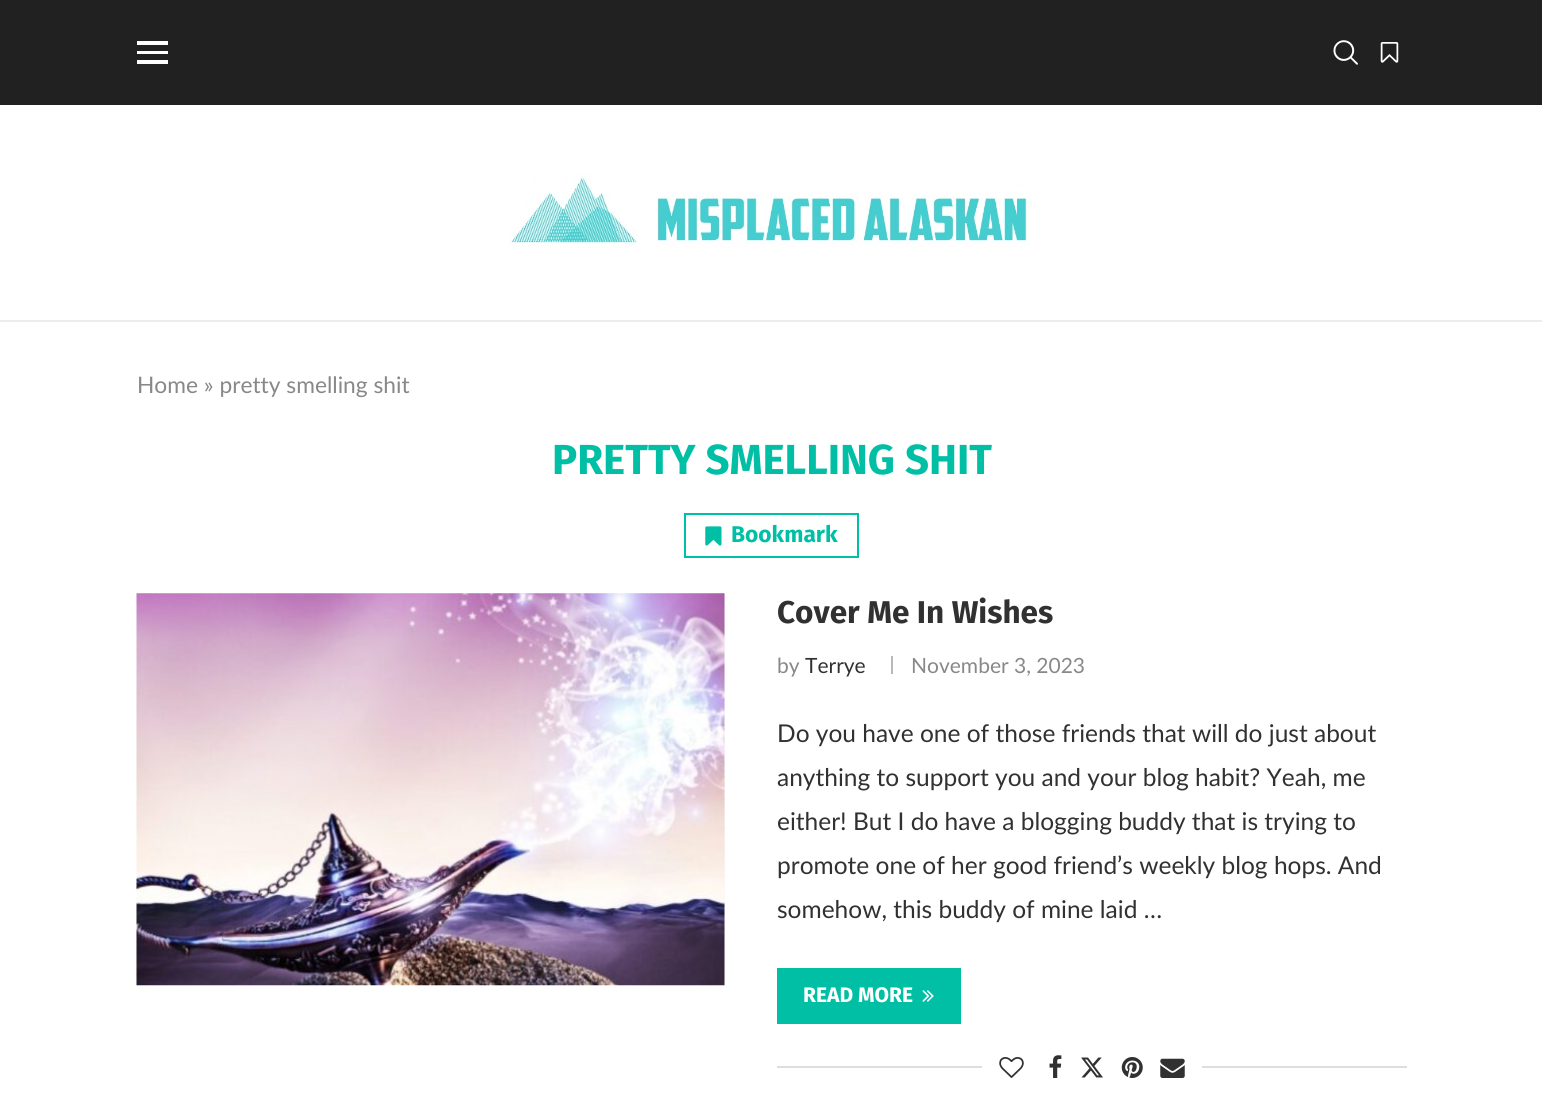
import math
import cairo

surface = cairo.ImageSurface(cairo.FORMAT_RGB24, 1542, 1107)
ctx = cairo.Context(surface)
options = cairo.FontOptions()
options.set_hint_metrics(cairo.HINT_METRICS_OFF)
options.set_hint_style(cairo.HINT_STYLE_NONE)
ctx.set_font_options(options)
ctx.set_miter_limit(4)


def picture(path, x, y, w, h):
    ctx.save()
    ctx.set_source_surface(cairo.ImageSurface.create_from_png(path), x, y)
    ctx.rectangle(x, y, w, h)
    ctx.fill()
    ctx.restore()


ctx.set_source_rgb(1, 1, 1)
ctx.paint()
ctx.set_source_rgb(0.129, 0.129, 0.129)
ctx.rectangle(0, 0, 1542, 105)
ctx.fill()
ctx.set_source_rgb(1, 1, 1)
ctx.rectangle(137, 41, 31, 4)
ctx.fill()
ctx.rectangle(137, 51, 31, 3)
ctx.fill()
ctx.rectangle(137, 60, 31, 4)
ctx.fill()
picture("img1.png", 1333, 40, 25, 25)
picture("img2.png", 1380, 42, 19, 21)
ctx.set_source_rgb(0.925, 0.925, 0.925)
ctx.rectangle(0, 320, 1542, 2)
ctx.fill()
picture("img3.png", 509, 175, 522, 73)
ctx.select_font_face("Lato")
ctx.set_font_size(22.75)
ctx.set_source_rgb(0.533, 0.533, 0.533)
ctx.move_to(137, 393)
ctx.show_text("Home » pretty smelling shit")
ctx.select_font_face("Fira Sans", cairo.FONT_SLANT_NORMAL, cairo.FONT_WEIGHT_BOLD)
ctx.set_font_size(42)
ctx.set_source_rgb(0, 0.749, 0.647)
ctx.move_to(552, 474)
ctx.show_text("PRETTY SMELLING SHIT")
ctx.rectangle(685, 514, 173, 43)
ctx.stroke()
picture("img4.png", 705, 526, 17, 20)
ctx.set_font_size(22.75)
ctx.move_to(731, 542)
ctx.show_text("Bookmark")
ctx.set_source_rgb(0.961, 0.961, 0.961)
ctx.rectangle(137, 593, 588, 392)
ctx.fill()
picture("img5.png", 136, 593, 589, 393)
ctx.set_font_size(31.5)
ctx.set_source_rgb(0.192, 0.192, 0.192)
ctx.move_to(777, 623)
ctx.show_text("Cover Me In Wishes")
ctx.select_font_face("Lato")
ctx.set_font_size(21)
ctx.set_source_rgb(0.533, 0.533, 0.533)
ctx.move_to(777, 673)
ctx.show_text("by")
ctx.set_source_rgb(0.192, 0.192, 0.192)
ctx.move_to(805, 673)
ctx.show_text("Terrye")
ctx.set_source_rgb(0.722, 0.722, 0.722)
ctx.rectangle(891, 656, 2, 18)
ctx.fill()
ctx.set_source_rgb(0.533, 0.533, 0.533)
ctx.move_to(911, 673)
ctx.show_text("November 3, 2023")
ctx.set_font_size(24.5)
ctx.set_source_rgb(0.192, 0.192, 0.192)
ctx.move_to(777, 742)
ctx.show_text("Do you have one of those friends that will do just about")
ctx.move_to(777, 786)
ctx.show_text("anything to support you and your blog habit? Yeah, me")
ctx.move_to(777, 830)
ctx.show_text("either! But I do have a blogging buddy that is trying to")
ctx.move_to(777, 874)
ctx.show_text("promote one of her good friend’s weekly blog hops. And")
ctx.move_to(777, 918)
ctx.show_text("somehow, this buddy of mine laid …")
ctx.set_source_rgb(0, 0.749, 0.647)
ctx.rectangle(777, 968, 184, 56)
ctx.fill()
ctx.select_font_face("Fira Sans", cairo.FONT_SLANT_NORMAL, cairo.FONT_WEIGHT_BOLD)
ctx.set_font_size(21)
ctx.set_source_rgb(1, 1, 1)
ctx.move_to(803, 1002)
ctx.show_text("READ MORE")
picture("img6.png", 922, 990, 12, 12)
ctx.set_source_rgb(0.871, 0.871, 0.871)
ctx.rectangle(777, 1066, 630, 2)
ctx.fill()
ctx.set_source_rgb(1, 1, 1)
ctx.rectangle(982, 1066, 220, 2)
ctx.fill()
picture("img7.png", 999, 1057, 25, 21)
picture("img8.png", 1049, 1055, 13, 23)
picture("img9.png", 1081, 1057, 22, 21)
picture("img10.png", 1121, 1057, 22, 21)
picture("img11.png", 1160, 1058, 25, 20)
surface.write_to_png("page.png")
